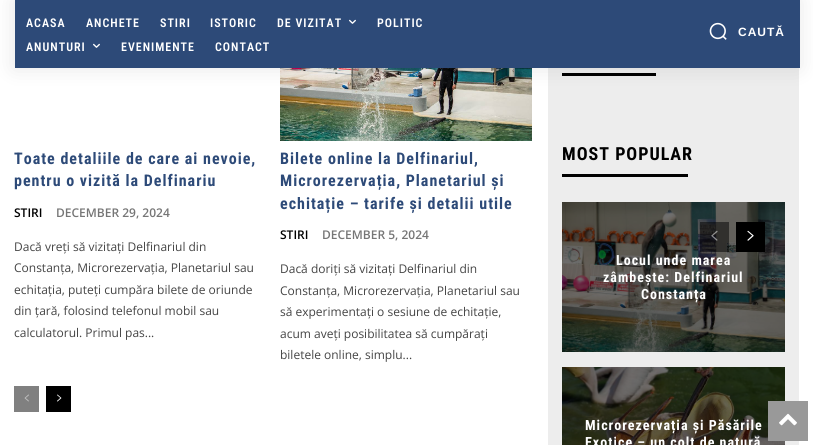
import math
import cairo

surface = cairo.ImageSurface(cairo.FORMAT_RGB24, 813, 445)
ctx = cairo.Context(surface)
options = cairo.FontOptions()
options.set_hint_metrics(cairo.HINT_METRICS_OFF)
options.set_hint_style(cairo.HINT_STYLE_NONE)
ctx.set_font_options(options)
ctx.set_miter_limit(4)


def spaced_text(x, y, s, letter, word):
    ctx.move_to(x, y)
    for ch in s:
        ctx.show_text(ch)
        ctx.rel_move_to(letter + word * (ch == ' '), 0)


def round_rect(x, y, w, h, r):
    ctx.new_sub_path()
    for i, (u, v) in enumerate([(x + w - r, y + h - r), (x + r, y + h - r), (x + r, y + r), (x + w - r, y + r)]):
        ctx.arc(u, v, r, i * math.pi / 2, (i + 1) * math.pi / 2)
    ctx.close_path()


def shadow(x, y, w, h, r, blur, alpha):
    ctx.push_group_with_content(cairo.CONTENT_ALPHA)
    ctx.set_operator(cairo.OPERATOR_SOURCE)
    for i in range(15, -16, -2):
        e = blur * i / 6
        if min(w, h) + 2 * e > 0:
            ctx.set_source_rgba(0, 0, 0, alpha * math.erfc((i - 1) / 8.5) / 2)
            round_rect(x - e, y - e, w + 2 * e, h + 2 * e, max(0, min(r + e + blur * .6, min(w, h) / 2 + e)))
            ctx.fill()
    ctx.mask(ctx.pop_group())


def picture(path, x, y, w, h):
    ctx.save()
    ctx.set_source_surface(cairo.ImageSurface.create_from_png(path), x, y)
    ctx.rectangle(x, y, w, h)
    ctx.fill()
    ctx.restore()


ctx.set_source_rgb(1, 1, 1)
ctx.paint()
picture("img3.png", 280, 68, 252, 73)
ctx.set_source_rgb(0.929, 0.929, 0.929)
ctx.rectangle(548, 68, 251, 377)
ctx.fill()
ctx.set_source_rgb(0, 0, 0)
ctx.rectangle(562, 73, 94, 3)
ctx.fill()
ctx.set_source_rgb(0, 0, 0)
shadow(14, 0, 785, 68, 0, 10, 0.1)
ctx.set_source_rgb(0.176, 0.29, 0.471)
ctx.rectangle(15, 0, 785, 68)
ctx.fill()
ctx.select_font_face("Roboto Condensed SemiBold")
ctx.set_font_size(12)
ctx.set_source_rgb(1, 1, 1)
spaced_text(26, 27, "ACASA", 1, 0)
spaced_text(86, 27, "ANCHETE", 1, 0)
spaced_text(160, 27, "STIRI", 1, 0)
spaced_text(210, 27, "ISTORIC", 1, 0)
spaced_text(277, 27, "DE VIZITAT", 1, 0)
picture("img1.png", 349, 19, 7, 5)
spaced_text(377, 27, "POLITIC", 1, 0)
spaced_text(26, 51, "ANUNTURI", 1, 0)
picture("img1.png", 93, 43, 7, 5)
spaced_text(121, 51, "EVENIMENTE", 1, 0)
spaced_text(215, 51, "CONTACT", 1, 0)
picture("img2.png", 709, 22, 18, 18)
ctx.select_font_face("Liberation Sans", cairo.FONT_SLANT_NORMAL, cairo.FONT_WEIGHT_BOLD)
spaced_text(738, 36, "CAUTĂ", 1, 0)
ctx.select_font_face("Roboto Condensed", cairo.FONT_SLANT_NORMAL, cairo.FONT_WEIGHT_BOLD)
ctx.set_font_size(16)
ctx.set_source_rgb(0.176, 0.29, 0.471)
spaced_text(14, 164, "Toate detaliile de care ai nevoie,", 1, 0)
spaced_text(14, 186, "pentru o vizită la Delfinariu", 1, 0)
ctx.select_font_face("Open Sans SemiBold")
ctx.set_font_size(12)
ctx.set_source_rgb(0, 0, 0)
ctx.move_to(14, 217)
ctx.show_text("STIRI")
ctx.set_source_rgb(0.463, 0.463, 0.463)
ctx.move_to(56, 217)
ctx.show_text("DECEMBER 29, 2024")
ctx.select_font_face("Open Sans")
ctx.set_source_rgb(0.267, 0.267, 0.267)
ctx.move_to(14, 251)
ctx.show_text("Dacă vreți să vizitați Delfinariul din")
ctx.move_to(14, 272)
ctx.show_text("Constanța, Microrezervația, Planetariul sau")
ctx.move_to(14, 294)
ctx.show_text("echitația, puteți cumpăra bilete de oriunde")
ctx.move_to(14, 315)
ctx.show_text("din țară, folosind telefonul mobil sau")
ctx.move_to(14, 337)
ctx.show_text("calculatorul. Primul pas...")
ctx.select_font_face("Roboto Condensed", cairo.FONT_SLANT_NORMAL, cairo.FONT_WEIGHT_BOLD)
ctx.set_font_size(16)
ctx.set_source_rgb(0.176, 0.29, 0.471)
spaced_text(280, 164, "Bilete online la Delfinariul,", 1, 0)
spaced_text(280, 186, "Microrezervația, Planetariul și", 1, 0)
spaced_text(280, 209, "echitație – tarife și detalii utile", 1, 0)
ctx.select_font_face("Open Sans SemiBold")
ctx.set_font_size(12)
ctx.set_source_rgb(0, 0, 0)
ctx.move_to(280, 239)
ctx.show_text("STIRI")
ctx.set_source_rgb(0.463, 0.463, 0.463)
ctx.move_to(322, 239)
ctx.show_text("DECEMBER 5, 2024")
ctx.select_font_face("Open Sans")
ctx.set_source_rgb(0.267, 0.267, 0.267)
ctx.move_to(280, 273)
ctx.show_text("Dacă doriți să vizitați Delfinariul din")
ctx.move_to(280, 295)
ctx.show_text("Constanța, Microrezervația, Planetariul sau")
ctx.move_to(280, 316)
ctx.show_text("să experimentați o sesiune de echitație,")
ctx.move_to(280, 338)
ctx.show_text("acum aveți posibilitatea să cumpărați")
ctx.move_to(280, 359)
ctx.show_text("biletele online, simplu...")
ctx.set_source_rgb(0.502, 0.502, 0.502)
ctx.rectangle(14, 386, 25, 26)
ctx.fill()
picture("img4.png", 24, 394, 5, 8)
ctx.set_source_rgb(0, 0, 0)
ctx.rectangle(46, 386, 25, 26)
ctx.fill()
picture("img5.png", 57, 394, 5, 8)
ctx.select_font_face("Roboto Condensed", cairo.FONT_SLANT_NORMAL, cairo.FONT_WEIGHT_BOLD)
ctx.set_font_size(18)
spaced_text(562, 160, "MOST POPULAR", 1, 0)
ctx.rectangle(562, 174, 126, 3)
ctx.fill()
picture("img8.png", 562, 202, 223, 150)
ctx.set_source_rgba(0, 0, 0, 0.5)
ctx.rectangle(700, 222, 29, 30)
ctx.fill()
picture("img6.png", 711, 230, 7, 11)
ctx.set_source_rgb(0, 0, 0)
ctx.rectangle(736, 222, 29, 30)
ctx.fill()
picture("img7.png", 747, 230, 7, 11)
ctx.set_font_size(14)
ctx.set_source_rgb(1, 1, 1)
spaced_text(616, 265, "Locul unde marea", 1, 0)
spaced_text(603, 282, "zâmbește: Delfinariul", 1, 0)
spaced_text(641, 299, "Constanța", 1, 0)
picture("img9.png", 562, 367, 223, 78)
spaced_text(585, 430, "Microrezervația și Păsările", 1, 0)
spaced_text(585, 447, "Exotice – un colț de natură", 1, 0)
ctx.set_source_rgb(0.6, 0.6, 0.6)
ctx.rectangle(768, 401, 40, 40)
ctx.fill()
picture("img10.png", 779, 413, 18, 13)
surface.write_to_png("page.png")
